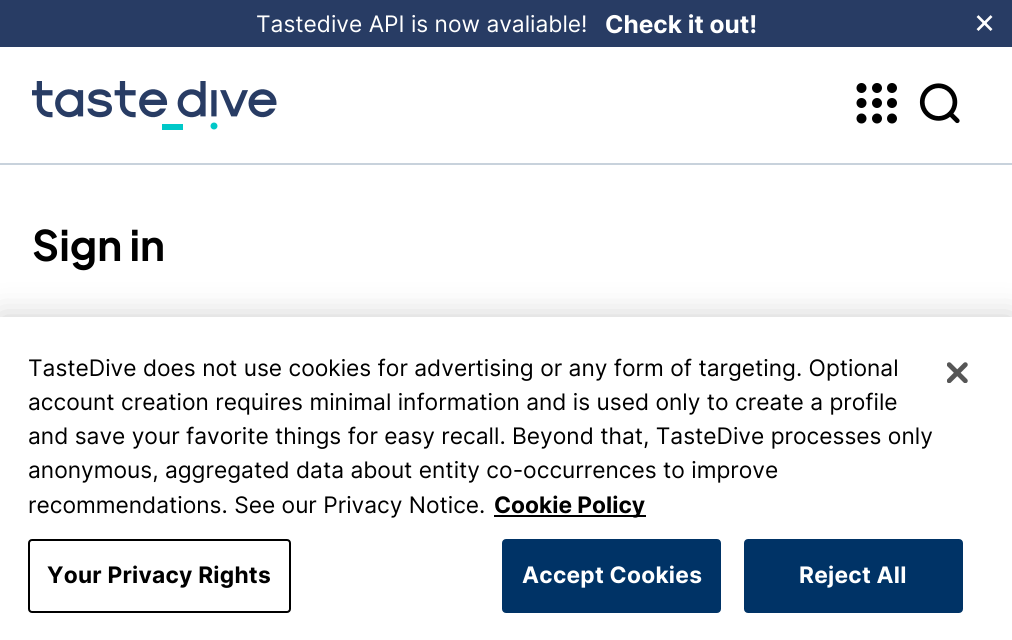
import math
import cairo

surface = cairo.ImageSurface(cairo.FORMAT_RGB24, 1012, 640)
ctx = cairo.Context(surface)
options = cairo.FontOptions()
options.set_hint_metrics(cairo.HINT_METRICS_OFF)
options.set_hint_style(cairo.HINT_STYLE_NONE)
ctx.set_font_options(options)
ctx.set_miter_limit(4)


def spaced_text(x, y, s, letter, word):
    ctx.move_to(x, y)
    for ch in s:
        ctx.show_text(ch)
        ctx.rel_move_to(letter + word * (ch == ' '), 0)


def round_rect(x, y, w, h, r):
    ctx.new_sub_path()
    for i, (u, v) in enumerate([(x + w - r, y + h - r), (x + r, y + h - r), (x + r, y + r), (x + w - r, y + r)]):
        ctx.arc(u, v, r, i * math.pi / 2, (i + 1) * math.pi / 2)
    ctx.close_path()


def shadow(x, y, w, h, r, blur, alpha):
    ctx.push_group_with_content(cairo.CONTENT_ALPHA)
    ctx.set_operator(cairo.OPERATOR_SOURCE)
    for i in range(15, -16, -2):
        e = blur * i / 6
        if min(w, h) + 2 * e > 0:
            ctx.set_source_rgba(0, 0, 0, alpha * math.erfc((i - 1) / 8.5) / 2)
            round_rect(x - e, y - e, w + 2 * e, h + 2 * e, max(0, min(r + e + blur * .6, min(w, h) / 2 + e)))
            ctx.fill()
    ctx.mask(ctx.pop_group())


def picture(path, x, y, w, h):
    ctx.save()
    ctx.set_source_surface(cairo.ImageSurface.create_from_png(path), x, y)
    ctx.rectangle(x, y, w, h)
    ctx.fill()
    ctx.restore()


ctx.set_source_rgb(1, 1, 1)
ctx.paint()
ctx.set_source_rgb(0.157, 0.235, 0.392)
ctx.rectangle(0, 0, 1012, 47)
ctx.fill()
ctx.select_font_face("Inter")
ctx.set_font_size(22.75)
ctx.set_source_rgb(1, 1, 1)
ctx.move_to(256, 32)
ctx.show_text("Tastedive API is now avaliable!")
ctx.select_font_face("Inter", cairo.FONT_SLANT_NORMAL, cairo.FONT_WEIGHT_BOLD)
ctx.set_font_size(24.5)
ctx.move_to(605, 33)
ctx.show_text("Check it out!")
ctx.select_font_face("Inter")
ctx.set_font_size(35)
ctx.move_to(973, 33)
ctx.show_text("×")
ctx.set_source_rgb(0.784, 0.824, 0.863)
ctx.rectangle(0, 163, 1012, 2)
ctx.fill()
picture("img1.png", 32, 81, 245, 49)
picture("img2.png", 856, 83, 41, 41)
picture("img3.png", 919, 83, 41, 41)
ctx.select_font_face("Plus Jakarta Sans", cairo.FONT_SLANT_NORMAL, cairo.FONT_WEIGHT_BOLD)
ctx.set_font_size(42)
ctx.set_source_rgb(0, 0, 0)
ctx.move_to(32, 261)
ctx.show_text("Sign in")
ctx.set_source_rgb(0, 0, 0)
shadow(0, 317, 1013, 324, 0, 16, 0.2)
ctx.set_source_rgb(1, 1, 1)
ctx.rectangle(0, 317, 1012, 323)
ctx.fill()
ctx.select_font_face("Inter")
ctx.set_font_size(22.75)
ctx.set_source_rgb(0, 0, 0)
ctx.move_to(28, 376)
ctx.show_text("TasteDive does not use cookies for advertising or any form of targeting. Optional")
ctx.move_to(28, 410)
ctx.show_text("account creation requires minimal information and is used only to create a profile")
ctx.move_to(28, 444)
ctx.show_text("and save your favorite things for easy recall. Beyond that, TasteDive processes only")
ctx.move_to(28, 478)
ctx.show_text("anonymous, aggregated data about entity co-occurrences to improve")
ctx.move_to(28, 513)
ctx.show_text("recommendations. See our Privacy Notice.")
ctx.rectangle(494, 515, 152, 2)
ctx.fill()
ctx.select_font_face("Inter", cairo.FONT_SLANT_NORMAL, cairo.FONT_WEIGHT_BOLD)
ctx.move_to(494, 513)
ctx.show_text("Cookie Policy")
round_rect(29, 540, 261, 72, 3)
ctx.stroke()
spaced_text(47, 583, "Your Privacy Rights", 0.25, 0)
ctx.set_source_rgb(0, 0.2, 0.4)
round_rect(503, 540, 217, 72, 3)
ctx.fill_preserve()
ctx.stroke()
ctx.set_source_rgb(1, 1, 1)
spaced_text(522, 583, "Accept Cookies", 0.25, 0)
ctx.set_source_rgb(0, 0.2, 0.4)
round_rect(745, 540, 217, 72, 3)
ctx.fill_preserve()
ctx.stroke()
ctx.set_source_rgb(1, 1, 1)
spaced_text(799, 583, "Reject All", 0.25, 0)
picture("img4.png", 947, 362, 21, 21)
surface.write_to_png("page.png")
